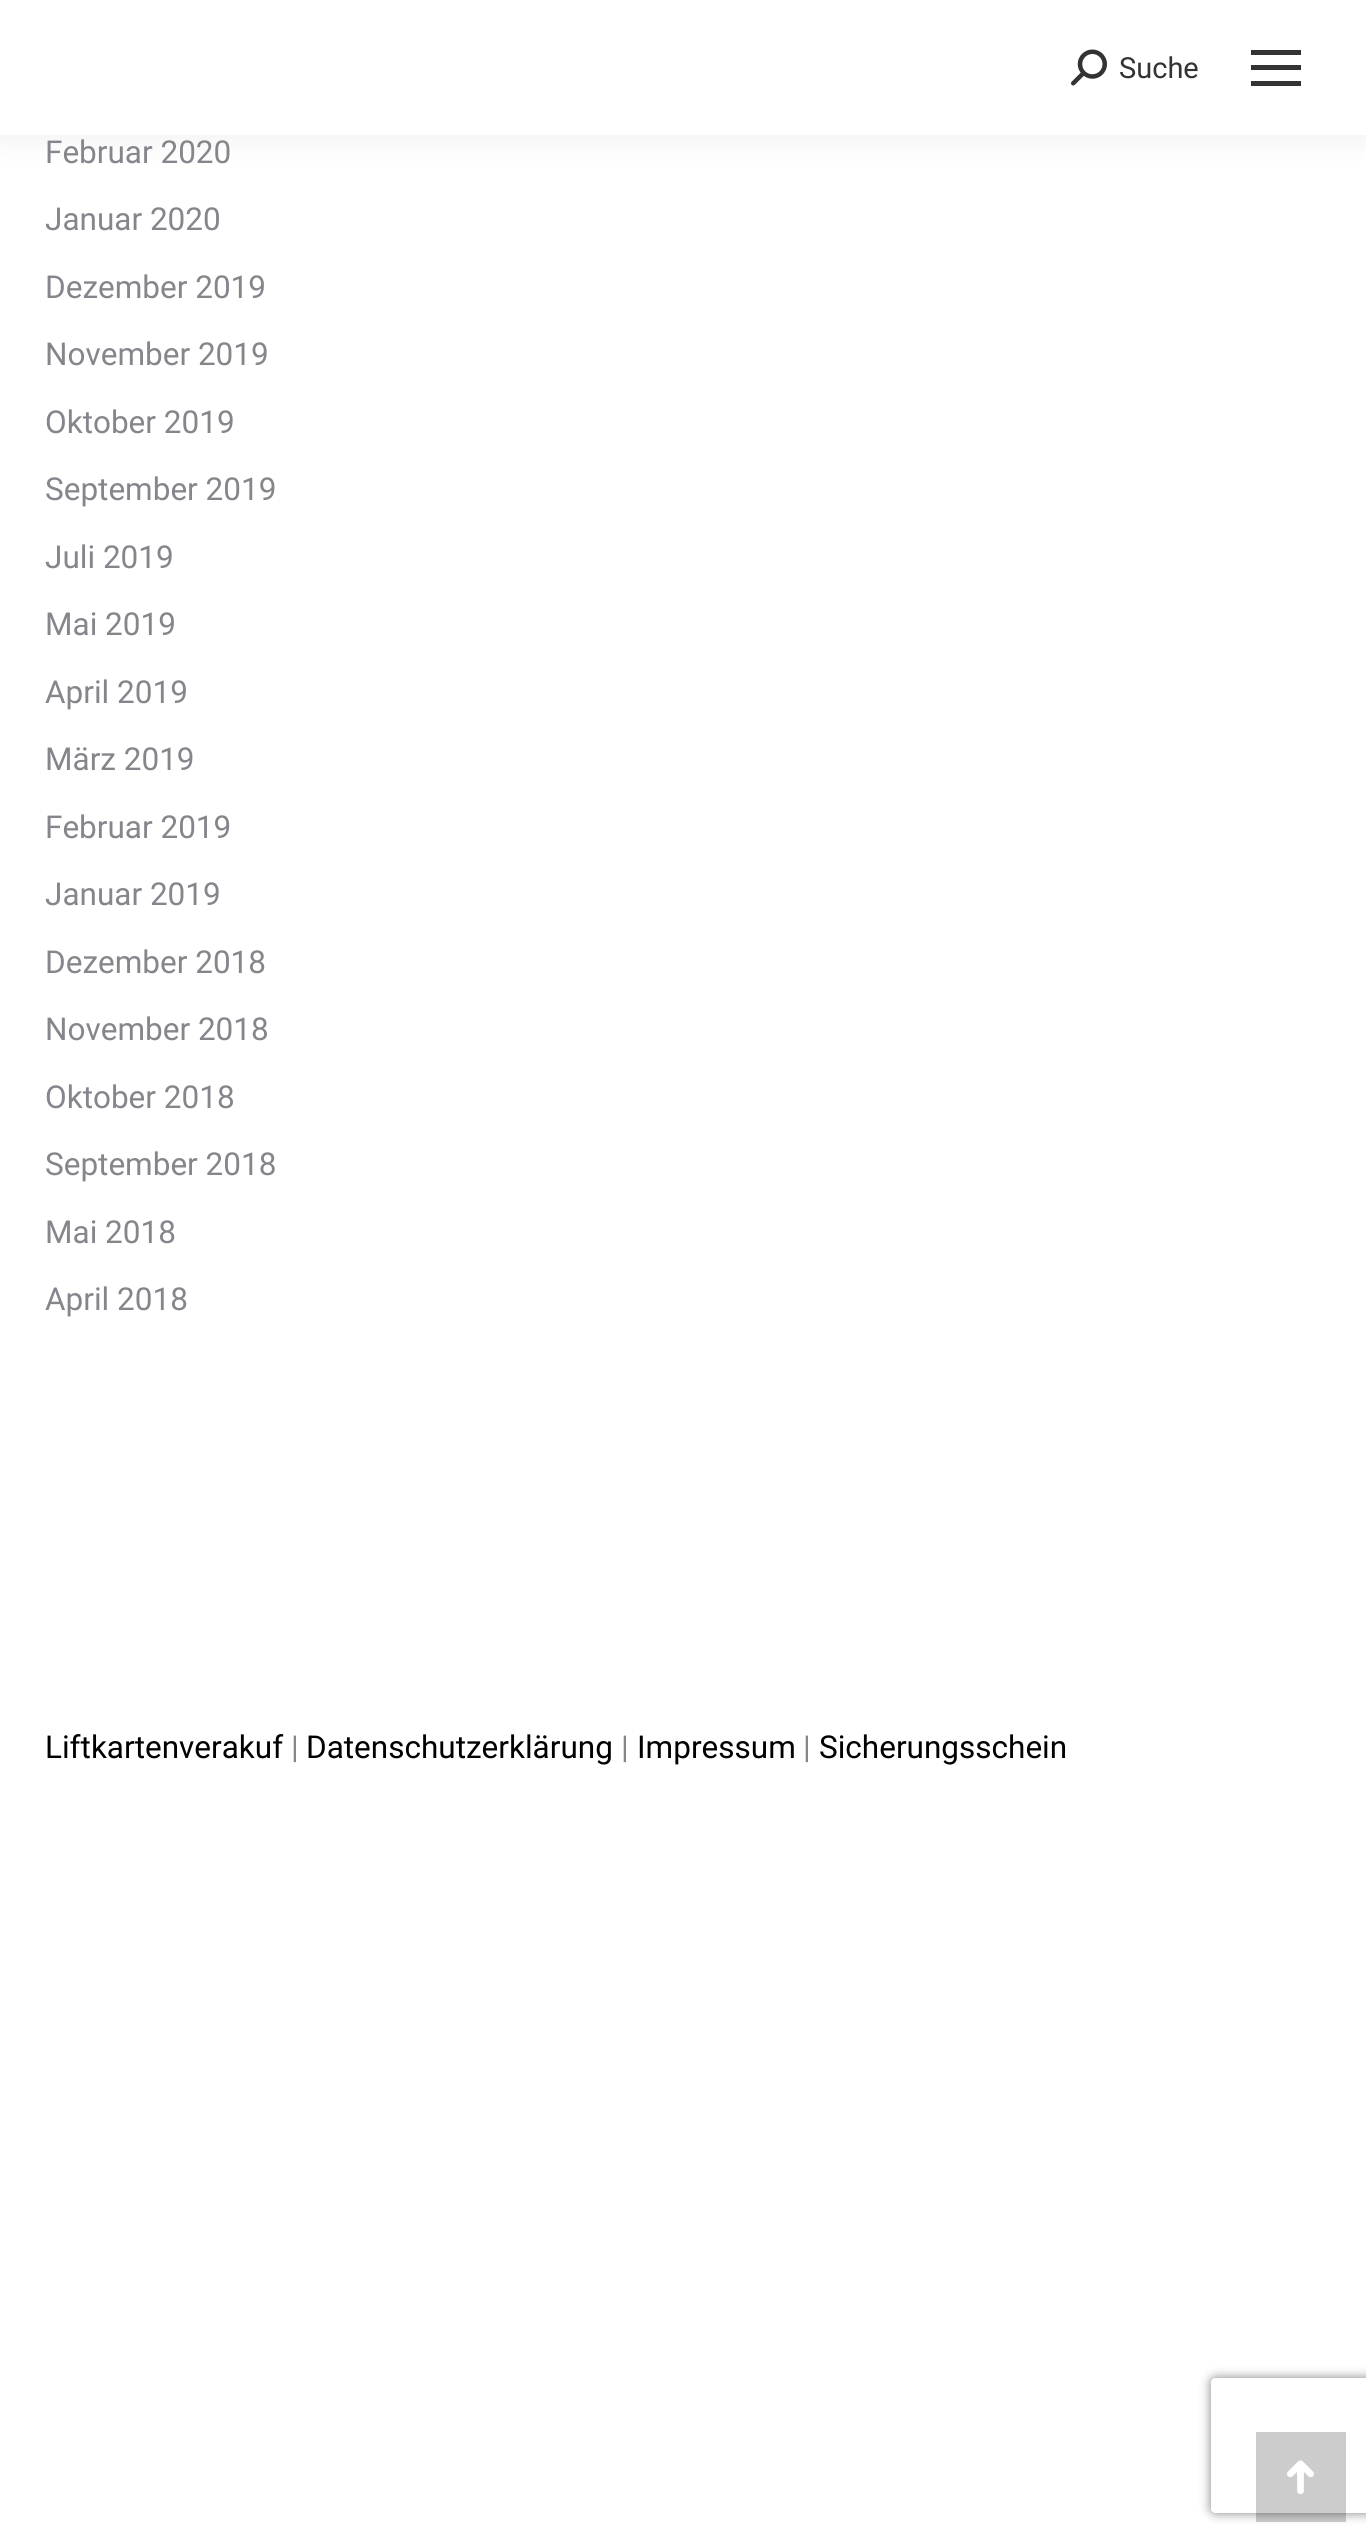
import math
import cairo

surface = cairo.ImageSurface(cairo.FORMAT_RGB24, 1366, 2544)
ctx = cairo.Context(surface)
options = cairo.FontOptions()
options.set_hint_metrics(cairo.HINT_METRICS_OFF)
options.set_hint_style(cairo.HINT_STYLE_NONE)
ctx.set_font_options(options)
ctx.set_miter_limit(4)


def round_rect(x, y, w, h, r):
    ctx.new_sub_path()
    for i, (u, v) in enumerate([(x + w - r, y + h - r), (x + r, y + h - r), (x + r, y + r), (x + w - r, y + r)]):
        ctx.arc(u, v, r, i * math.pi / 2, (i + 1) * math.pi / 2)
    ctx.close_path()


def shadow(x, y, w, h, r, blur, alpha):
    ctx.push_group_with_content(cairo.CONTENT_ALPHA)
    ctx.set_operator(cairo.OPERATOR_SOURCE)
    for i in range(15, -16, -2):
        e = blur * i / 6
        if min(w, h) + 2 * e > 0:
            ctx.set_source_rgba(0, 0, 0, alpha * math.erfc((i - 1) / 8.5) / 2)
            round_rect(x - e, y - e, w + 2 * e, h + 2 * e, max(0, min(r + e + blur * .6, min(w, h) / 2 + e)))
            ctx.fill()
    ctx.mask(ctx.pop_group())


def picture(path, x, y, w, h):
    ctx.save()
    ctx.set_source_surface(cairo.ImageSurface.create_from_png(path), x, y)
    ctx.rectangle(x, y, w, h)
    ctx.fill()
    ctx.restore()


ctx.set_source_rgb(1, 1, 1)
ctx.paint()
ctx.set_source_rgb(0, 0, 0)
shadow(-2, -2, 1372, 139, 0, 17, 0.07)
ctx.set_source_rgb(1, 1, 1)
ctx.rectangle(0, 0, 1366, 135)
ctx.fill()
picture("img1.png", 1071, 49, 36, 37)
ctx.select_font_face("Roboto")
ctx.set_font_size(29)
ctx.set_source_rgb(0.2, 0.2, 0.2)
ctx.move_to(1119, 78)
ctx.show_text("Suche")
ctx.rectangle(1251, 50, 50, 5)
ctx.fill()
ctx.rectangle(1251, 65, 50, 5)
ctx.fill()
ctx.rectangle(1251, 81, 50, 5)
ctx.fill()
ctx.set_font_size(31.5)
ctx.set_source_rgb(0.522, 0.525, 0.549)
ctx.move_to(45, 163)
ctx.show_text("Februar 2020")
ctx.move_to(45, 230)
ctx.show_text("Januar 2020")
ctx.move_to(45, 298)
ctx.show_text("Dezember 2019")
ctx.move_to(45, 365)
ctx.show_text("November 2019")
ctx.move_to(45, 433)
ctx.show_text("Oktober 2019")
ctx.move_to(45, 500)
ctx.show_text("September 2019")
ctx.move_to(45, 568)
ctx.show_text("Juli 2019")
ctx.move_to(45, 635)
ctx.show_text("Mai 2019")
ctx.move_to(45, 703)
ctx.show_text("April 2019")
ctx.move_to(45, 770)
ctx.show_text("März 2019")
ctx.move_to(45, 838)
ctx.show_text("Februar 2019")
ctx.move_to(45, 905)
ctx.show_text("Januar 2019")
ctx.move_to(45, 973)
ctx.show_text("Dezember 2018")
ctx.move_to(45, 1040)
ctx.show_text("November 2018")
ctx.move_to(45, 1108)
ctx.show_text("Oktober 2018")
ctx.move_to(45, 1175)
ctx.show_text("September 2018")
ctx.move_to(45, 1243)
ctx.show_text("Mai 2018")
ctx.move_to(45, 1310)
ctx.show_text("April 2018")
ctx.set_source_rgb(0, 0, 0)
ctx.move_to(45, 1758)
ctx.show_text("Liftkartenverakuf")
ctx.set_source_rgb(0.522, 0.525, 0.549)
ctx.move_to(291, 1758)
ctx.show_text("|")
ctx.set_source_rgb(0, 0, 0)
ctx.move_to(306, 1758)
ctx.show_text("Datenschutzerklärung")
ctx.set_source_rgb(0.522, 0.525, 0.549)
ctx.move_to(621, 1758)
ctx.show_text("|")
ctx.set_source_rgb(0, 0, 0)
ctx.move_to(637, 1758)
ctx.show_text("Impressum")
ctx.set_source_rgb(0.522, 0.525, 0.549)
ctx.move_to(803, 1758)
ctx.show_text("|")
ctx.set_source_rgb(0, 0, 0)
ctx.move_to(819, 1758)
ctx.show_text("Sicherungsschein")
ctx.save()
ctx.set_fill_rule(cairo.FILL_RULE_EVEN_ODD)
ctx.new_path()
ctx.move_to(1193, 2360)
ctx.line_to(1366, 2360)
ctx.line_to(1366, 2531)
ctx.line_to(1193, 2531)
ctx.close_path()
ctx.move_to(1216, 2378)
ctx.line_to(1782, 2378)
ctx.curve_to(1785, 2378, 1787, 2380, 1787, 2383)
ctx.line_to(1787, 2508)
ctx.curve_to(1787, 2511, 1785, 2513, 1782, 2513)
ctx.line_to(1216, 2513)
ctx.curve_to(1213, 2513, 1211, 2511, 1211, 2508)
ctx.line_to(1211, 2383)
ctx.curve_to(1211, 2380, 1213, 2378, 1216, 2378)
ctx.close_path()
ctx.clip()
ctx.set_source_rgb(0.502, 0.502, 0.502)
shadow(1211, 2378, 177, 135, 5, 5.5, 1)
ctx.restore()
ctx.set_source_rgba(0, 0, 0, 0.2)
ctx.rectangle(1256, 2432, 90, 90)
ctx.fill()
picture("img2.png", 1287, 2460, 27, 35)
surface.write_to_png("page.png")
